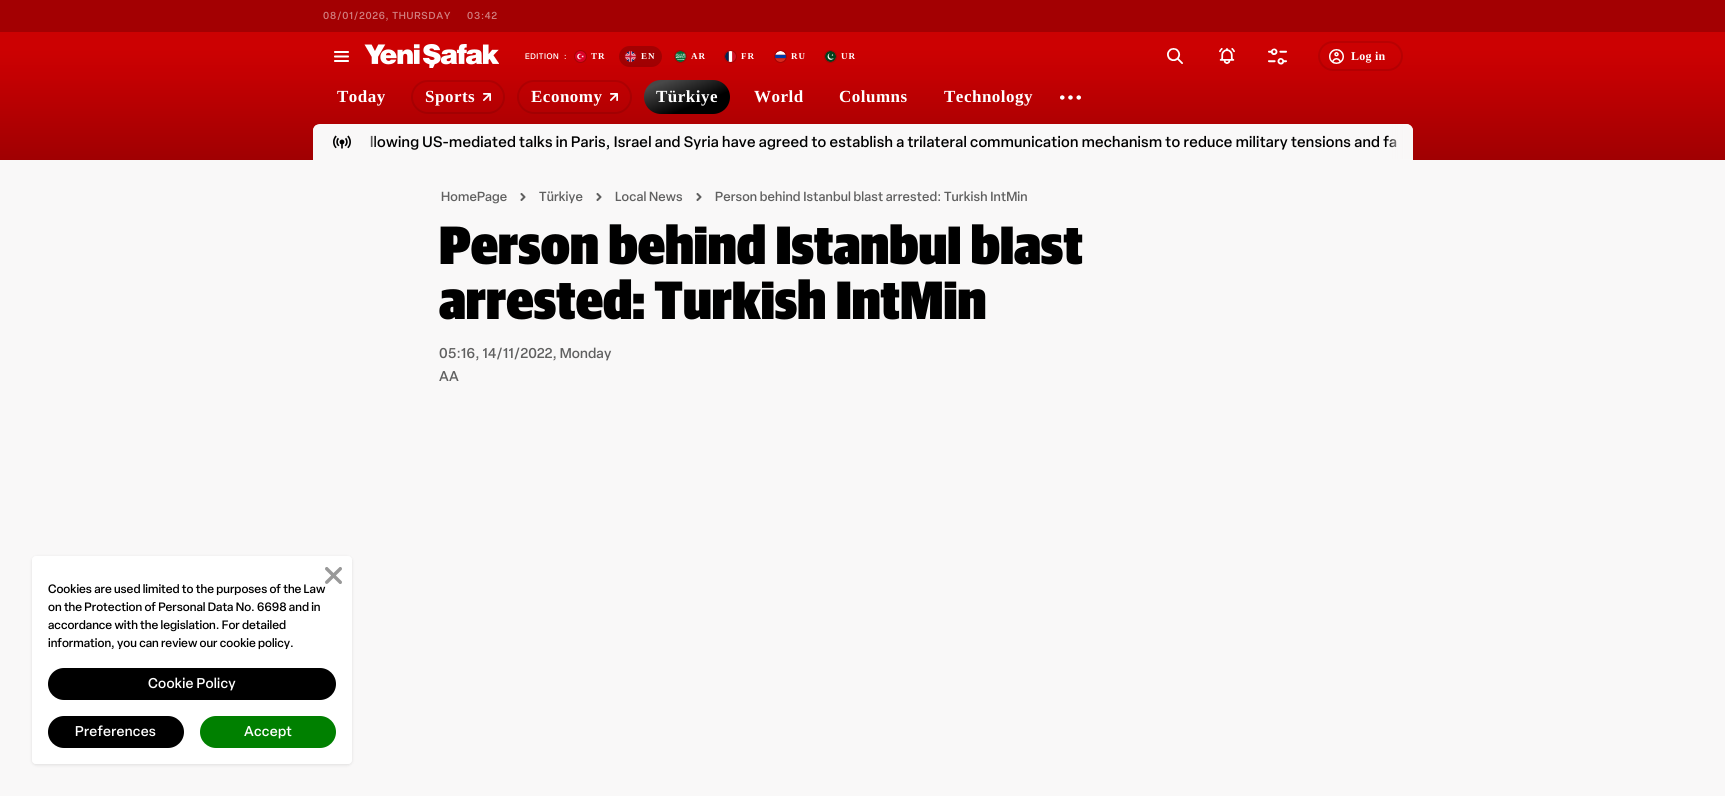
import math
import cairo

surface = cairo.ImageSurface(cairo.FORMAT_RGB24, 1725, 796)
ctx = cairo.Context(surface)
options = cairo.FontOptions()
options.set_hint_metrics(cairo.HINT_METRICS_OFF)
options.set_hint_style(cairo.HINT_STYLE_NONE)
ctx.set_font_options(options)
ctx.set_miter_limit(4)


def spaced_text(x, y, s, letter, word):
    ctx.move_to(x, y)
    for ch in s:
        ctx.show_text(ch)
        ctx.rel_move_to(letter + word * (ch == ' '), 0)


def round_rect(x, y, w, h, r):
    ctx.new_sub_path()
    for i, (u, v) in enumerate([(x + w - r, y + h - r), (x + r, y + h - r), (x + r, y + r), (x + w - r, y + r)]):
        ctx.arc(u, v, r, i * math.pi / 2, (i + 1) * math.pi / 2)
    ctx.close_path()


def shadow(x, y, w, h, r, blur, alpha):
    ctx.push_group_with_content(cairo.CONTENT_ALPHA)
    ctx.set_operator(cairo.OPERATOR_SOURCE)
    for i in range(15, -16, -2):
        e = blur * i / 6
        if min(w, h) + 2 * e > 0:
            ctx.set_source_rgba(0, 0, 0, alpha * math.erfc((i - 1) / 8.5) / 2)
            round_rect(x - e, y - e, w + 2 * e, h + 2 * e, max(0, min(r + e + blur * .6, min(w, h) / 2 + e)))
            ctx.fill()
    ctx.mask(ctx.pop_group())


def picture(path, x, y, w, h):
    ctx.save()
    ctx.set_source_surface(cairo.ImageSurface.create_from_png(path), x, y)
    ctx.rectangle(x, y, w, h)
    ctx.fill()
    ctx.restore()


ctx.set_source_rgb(0.976, 0.969, 0.969)
ctx.paint()
ctx.set_source_rgb(0.639, 0, 0.008)
ctx.rectangle(0, 0, 1725, 32)
ctx.fill()
ctx.select_font_face("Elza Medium")
ctx.set_font_size(10)
ctx.set_source_rgb(0.82, 0.502, 0.506)
spaced_text(323, 19, "08/01/2026, THURSDAY", 0.8, 0)
spaced_text(467, 19, "03:42", 0.8, 0)
gradient = cairo.LinearGradient(863, 0, 863, 160)
gradient.add_color_stop_rgba(0.35, 0.8, 0, 0.008, 1)
gradient.add_color_stop_rgba(1, 0.627, 0, 0.008, 1)
ctx.set_source(gradient)
ctx.rectangle(0, 80, 1725, 80)
ctx.fill()
gradient = cairo.LinearGradient(863, 32, 863, 80)
gradient.add_color_stop_rgba(0.37, 0.8, 0.004, 0.008, 1)
gradient.add_color_stop_rgba(1, 0.765, 0, 0.008, 1)
ctx.set_source(gradient)
ctx.rectangle(0, 32, 1725, 48)
ctx.fill()
picture("img1.png", 334, 51, 15, 11)
picture("img2.png", 364, 44, 135, 24)
ctx.set_font_size(8)
ctx.set_source_rgb(1, 1, 1)
spaced_text(525, 59, "EDITION", 0.5, 0)
spaced_text(564, 59, ":", 0.5, 0)
ctx.new_path()
ctx.arc(580.5, 56.5, 6, 0, 2 * math.pi)
ctx.set_source_rgb(0.643, 0.02, 0.024)
ctx.set_line_width(1)
ctx.stroke()
picture("img3.png", 575, 51, 11, 11)
ctx.select_font_face("Liberation Serif", cairo.FONT_SLANT_NORMAL, cairo.FONT_WEIGHT_BOLD)
ctx.set_font_size(9)
ctx.set_source_rgb(1, 1, 1)
spaced_text(591, 59, "TR", 1, 0)
ctx.set_source_rgba(0, 0, 0, 0.2)
round_rect(619, 46, 43, 21, 10.5)
ctx.fill()
ctx.arc(630.5, 56.5, 6, 0, 2 * math.pi)
ctx.set_source_rgb(0.643, 0.02, 0.024)
ctx.stroke()
picture("img4.png", 625, 51, 11, 11)
ctx.set_source_rgb(1, 1, 1)
spaced_text(641, 59, "EN", 1, 0)
ctx.new_path()
ctx.arc(680.5, 56.5, 6, 0, 2 * math.pi)
ctx.set_source_rgb(0.643, 0.02, 0.024)
ctx.stroke()
picture("img5.png", 675, 51, 11, 11)
ctx.set_source_rgb(1, 1, 1)
spaced_text(691, 59, "AR", 1, 0)
ctx.new_path()
ctx.arc(730.5, 56.5, 6, 0, 2 * math.pi)
ctx.set_source_rgb(0.643, 0.02, 0.024)
ctx.stroke()
picture("img6.png", 725, 51, 11, 11)
ctx.set_source_rgb(1, 1, 1)
spaced_text(741, 59, "FR", 1, 0)
ctx.new_path()
ctx.arc(780.5, 56.5, 6, 0, 2 * math.pi)
ctx.set_source_rgb(0.643, 0.02, 0.024)
ctx.stroke()
picture("img7.png", 775, 51, 11, 11)
ctx.set_source_rgb(1, 1, 1)
spaced_text(791, 59, "RU", 1, 0)
ctx.new_path()
ctx.arc(830.5, 56.5, 6, 0, 2 * math.pi)
ctx.set_source_rgb(0.643, 0.02, 0.024)
ctx.stroke()
picture("img8.png", 825, 51, 11, 11)
ctx.set_source_rgb(1, 1, 1)
spaced_text(841, 59, "UR", 1, 0)
picture("img9.png", 1167, 48, 16, 16)
picture("img10.png", 1219, 48, 16, 16)
picture("img11.png", 1268, 48, 19, 17)
round_rect(1319, 42, 83, 28, 14)
ctx.set_source_rgba(0, 0, 0, 0.1)
ctx.set_line_width(2)
ctx.stroke()
picture("img12.png", 1329, 49, 15, 15)
ctx.set_font_size(12)
ctx.set_source_rgb(1, 1, 1)
spaced_text(1351, 60, "Log in", 0.25, 0)
ctx.save()
ctx.rectangle(337, 80, 48, 34)
ctx.clip()
ctx.set_font_size(17)
spaced_text(337, 102, "Today", 0.5, 0)
ctx.restore()
round_rect(412, 81, 92, 32, 16)
ctx.set_source_rgba(0, 0, 0, 0.1)
ctx.stroke()
ctx.set_font_size(17)
ctx.set_source_rgb(1, 1, 1)
spaced_text(425, 102, "Sports", 0.5, 0)
picture("img13.png", 483, 93, 8, 8)
round_rect(518, 81, 113, 32, 16)
ctx.set_source_rgba(0, 0, 0, 0.1)
ctx.stroke()
ctx.set_source_rgb(1, 1, 1)
spaced_text(531, 102, "Economy", 0.5, 0)
picture("img13.png", 610, 93, 8, 8)
gradient = cairo.LinearGradient(675, 67, 699, 127)
gradient.add_color_stop_rgba(0.15, 0.282, 0.282, 0.282, 1)
gradient.add_color_stop_rgba(0.66, 0, 0, 0, 1)
ctx.set_source(gradient)
round_rect(644, 80, 86, 34, 17)
ctx.fill()
ctx.set_source_rgb(1, 1, 1)
spaced_text(656, 102, "Türkiye", 0.5, 0)
spaced_text(754, 102, "World", 0.5, 0)
spaced_text(839, 102, "Columns", 0.5, 0)
spaced_text(944, 102, "Technology", 0.5, 0)
picture("img14.png", 1060, 95, 21, 5)
ctx.set_source_rgb(0.976, 0.969, 0.969)
ctx.new_path()
ctx.move_to(320, 124)
ctx.line_to(1406, 124)
ctx.curve_to(1410, 124, 1413, 127, 1413, 131)
ctx.line_to(1413, 160)
ctx.line_to(313, 160)
ctx.line_to(313, 131)
ctx.curve_to(313, 127, 316, 124, 320, 124)
ctx.close_path()
ctx.fill()
ctx.save()
ctx.new_path()
ctx.move_to(320, 124)
ctx.line_to(1406, 124)
ctx.curve_to(1410, 124, 1413, 127, 1413, 131)
ctx.line_to(1413, 160)
ctx.line_to(313, 160)
ctx.line_to(313, 131)
ctx.curve_to(313, 127, 316, 124, 320, 124)
ctx.close_path()
ctx.clip()
ctx.rectangle(313, 125, 40, 35)
ctx.fill()
ctx.restore()
picture("img15.png", 333, 135, 18, 14)
ctx.select_font_face("Elza Medium")
ctx.set_font_size(15)
ctx.set_source_rgb(0, 0, 0)
spaced_text(370, 147, "llowing US-mediated talks in Paris, Israel and Syria have agreed to establish a trilateral communication mechanism to reduce military tensions and fa", 0.25, 0)
gradient = cairo.LinearGradient(353, 143, 377, 143)
gradient.add_color_stop_rgba(0.35, 0.976, 0.969, 0.969, 1)
gradient.add_color_stop_rgba(1, 0.976, 0.969, 0.969, 0)
ctx.set_source(gradient)
ctx.rectangle(370, 135, 6, 12)
ctx.fill()
gradient = cairo.LinearGradient(1388, 142, 1413, 142)
gradient.add_color_stop_rgba(0, 0.976, 0.969, 0.969, 0)
gradient.add_color_stop_rgba(0.65, 0.976, 0.969, 0.969, 1)
ctx.set_source(gradient)
ctx.new_path()
ctx.move_to(1388, 124)
ctx.line_to(1406, 124)
ctx.curve_to(1410, 124, 1413, 127, 1413, 131)
ctx.line_to(1413, 159)
ctx.line_to(1388, 159)
ctx.close_path()
ctx.fill()
ctx.set_font_size(13)
ctx.set_source_rgb(0.376, 0.376, 0.376)
spaced_text(441, 201, "HomePage", 0.13, 0)
picture("img16.png", 520, 193, 6, 8)
spaced_text(539, 201, "Türkiye", 0.13, 0)
picture("img16.png", 596, 193, 6, 8)
spaced_text(615, 201, "Local News", 0.13, 0)
picture("img16.png", 696, 193, 6, 8)
spaced_text(715, 201, "Person behind Istanbul blast arrested: Turkish IntMin", 0.13, 0)
ctx.select_font_face("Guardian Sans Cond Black")
ctx.set_font_size(54)
ctx.set_source_rgb(0, 0, 0)
ctx.move_to(439, 264)
ctx.show_text("Person behind Istanbul blast")
ctx.move_to(439, 319)
ctx.show_text("arrested: Turkish IntMin")
ctx.select_font_face("Elza Medium")
ctx.set_font_size(14)
ctx.set_source_rgb(0.376, 0.376, 0.376)
spaced_text(439, 358, "05:16, 14/11/2022, Monday", 0.15, 0)
spaced_text(439, 381, "AA", 0.15, 0)
ctx.save()
ctx.set_fill_rule(cairo.FILL_RULE_EVEN_ODD)
ctx.new_path()
ctx.move_to(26, 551)
ctx.line_to(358, 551)
ctx.line_to(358, 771)
ctx.line_to(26, 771)
ctx.close_path()
ctx.move_to(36, 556)
ctx.line_to(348, 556)
ctx.curve_to(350, 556, 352, 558, 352, 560)
ctx.line_to(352, 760)
ctx.curve_to(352, 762, 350, 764, 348, 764)
ctx.line_to(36, 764)
ctx.curve_to(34, 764, 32, 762, 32, 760)
ctx.line_to(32, 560)
ctx.curve_to(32, 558, 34, 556, 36, 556)
ctx.close_path()
ctx.clip()
ctx.set_source_rgb(0, 0, 0)
shadow(32, 557, 320, 208, 4, 1.5, 0.1)
ctx.restore()
ctx.set_source_rgba(1, 1, 1, 0.95)
round_rect(32, 556, 320, 208, 4)
ctx.fill()
picture("img17.png", 325, 567, 17, 17)
ctx.set_font_size(12)
ctx.set_source_rgb(0, 0, 0)
ctx.move_to(48, 593)
ctx.show_text("Cookies are used limited to the purposes of the Law")
ctx.move_to(48, 611)
ctx.show_text("on the Protection of Personal Data No. 6698 and in")
ctx.move_to(48, 629)
ctx.show_text("accordance with the legislation. For detailed")
ctx.move_to(48, 647)
ctx.show_text("information, you can review our cookie policy.")
round_rect(48, 668, 288, 32, 16)
ctx.fill()
ctx.set_font_size(14)
ctx.set_source_rgb(1, 1, 1)
spaced_text(148, 688, "Cookie Policy", 0.25, 0)
ctx.set_source_rgb(0, 0, 0)
round_rect(48, 716, 136, 32, 16)
ctx.fill()
ctx.set_source_rgb(1, 1, 1)
spaced_text(75, 736, "Preferences", 0.25, 0)
ctx.set_source_rgb(0, 0.502, 0)
round_rect(200, 716, 136, 32, 16)
ctx.fill()
ctx.set_source_rgb(1, 1, 1)
spaced_text(244, 736, "Accept", 0.25, 0)
surface.write_to_png("page.png")
